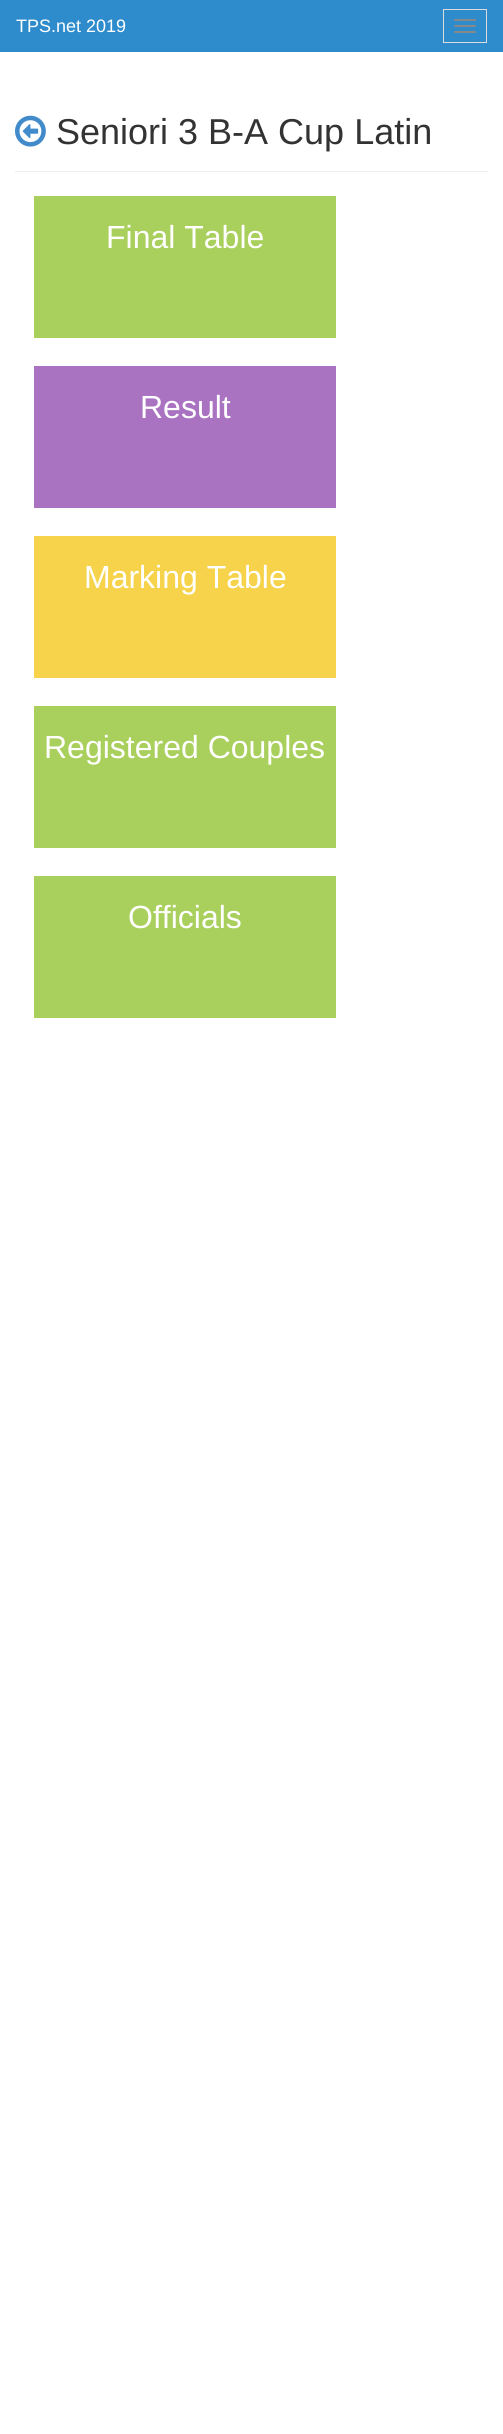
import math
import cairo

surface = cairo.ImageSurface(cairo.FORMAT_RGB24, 503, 2434)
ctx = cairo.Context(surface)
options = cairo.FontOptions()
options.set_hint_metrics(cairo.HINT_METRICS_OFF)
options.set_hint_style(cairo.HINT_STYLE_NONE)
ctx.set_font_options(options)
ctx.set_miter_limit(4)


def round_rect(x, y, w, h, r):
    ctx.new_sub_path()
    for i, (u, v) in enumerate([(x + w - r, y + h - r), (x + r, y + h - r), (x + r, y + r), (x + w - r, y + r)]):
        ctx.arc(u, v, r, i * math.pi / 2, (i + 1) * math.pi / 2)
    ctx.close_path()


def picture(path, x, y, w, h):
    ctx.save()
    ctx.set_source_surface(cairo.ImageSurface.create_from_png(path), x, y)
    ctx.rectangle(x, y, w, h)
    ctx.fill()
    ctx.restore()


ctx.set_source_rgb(1, 1, 1)
ctx.paint()
ctx.set_source_rgb(0.18, 0.545, 0.8)
ctx.rectangle(0, 0, 503, 52)
ctx.fill()
ctx.select_font_face("Liberation Sans")
ctx.set_font_size(18)
ctx.set_source_rgb(1, 1, 1)
ctx.move_to(16, 32)
ctx.show_text("TPS.net 2019")
ctx.rectangle(443.5, 9.5, 43, 33)
ctx.set_source_rgb(0.867, 0.867, 0.867)
ctx.set_line_width(1)
ctx.stroke()
ctx.set_source_rgb(0.533, 0.533, 0.533)
round_rect(454, 19, 22, 2, 1)
ctx.fill()
round_rect(454, 25, 22, 2, 1)
ctx.fill()
round_rect(454, 31, 22, 2, 1)
ctx.fill()
ctx.set_source_rgb(0.933, 0.933, 0.933)
ctx.rectangle(15, 171, 473, 1)
ctx.fill()
picture("img1.png", 15, 115, 31, 32)
ctx.set_font_size(36)
ctx.set_source_rgb(0.2, 0.2, 0.2)
ctx.move_to(56, 144)
ctx.show_text("Seniori 3 B-A Cup Latin")
ctx.set_source_rgb(0.663, 0.812, 0.361)
ctx.rectangle(34, 196, 302, 142)
ctx.fill()
ctx.set_font_size(32)
ctx.set_source_rgb(1, 1, 1)
ctx.move_to(106, 248)
ctx.show_text("Final Table")
ctx.set_source_rgb(0.667, 0.451, 0.761)
ctx.rectangle(34, 366, 302, 142)
ctx.fill()
ctx.set_source_rgb(1, 1, 1)
ctx.move_to(140, 418)
ctx.show_text("Result")
ctx.set_source_rgb(0.961, 0.827, 0.294)
ctx.rectangle(34, 536, 302, 142)
ctx.fill()
ctx.set_source_rgb(1, 1, 1)
ctx.move_to(84, 588)
ctx.show_text("Marking Table")
ctx.set_source_rgb(0.663, 0.812, 0.361)
ctx.rectangle(34, 706, 302, 142)
ctx.fill()
ctx.set_source_rgb(1, 1, 1)
ctx.move_to(44, 758)
ctx.show_text("Registered Couples")
ctx.set_source_rgb(0.663, 0.812, 0.361)
ctx.rectangle(34, 876, 302, 142)
ctx.fill()
ctx.set_source_rgb(1, 1, 1)
ctx.move_to(128, 928)
ctx.show_text("Officials")
surface.write_to_png("page.png")
